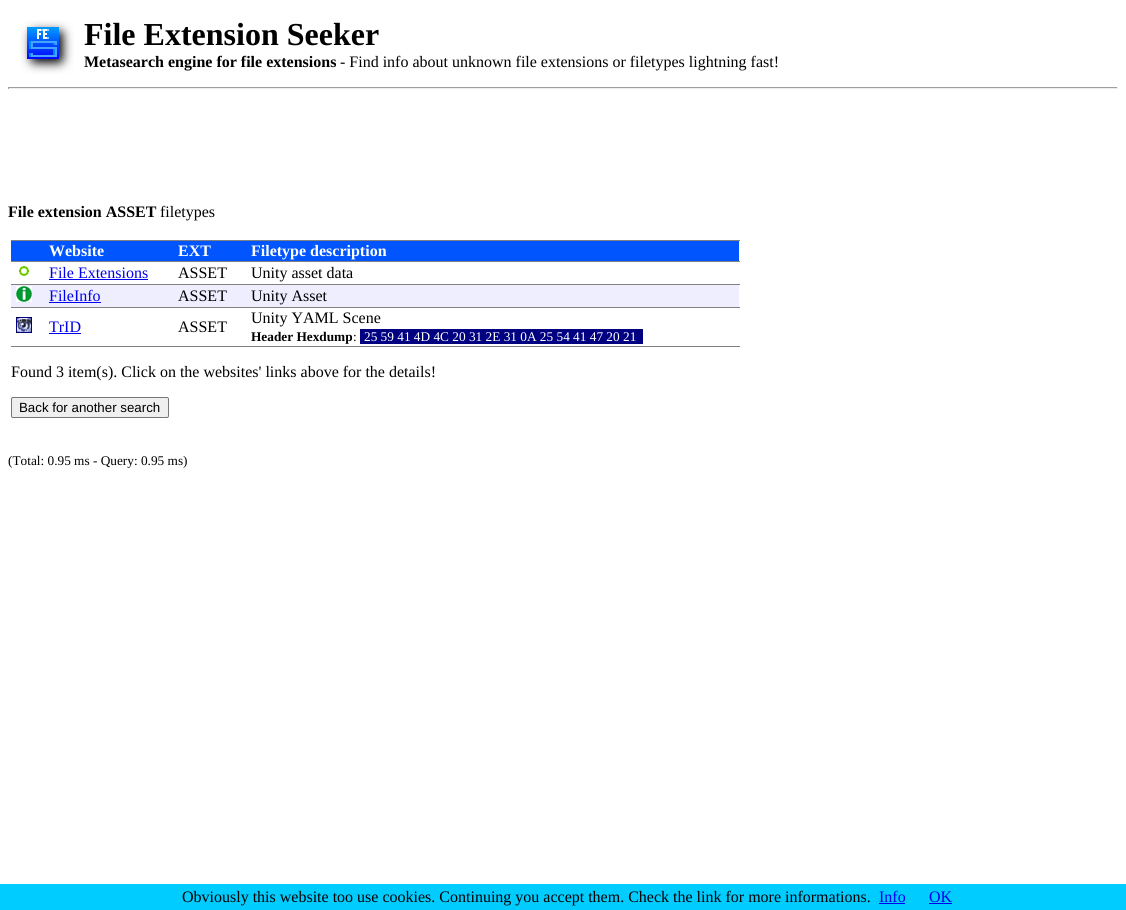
import math
import cairo

surface = cairo.ImageSurface(cairo.FORMAT_RGB24, 1126, 910)
ctx = cairo.Context(surface)
options = cairo.FontOptions()
options.set_hint_metrics(cairo.HINT_METRICS_OFF)
options.set_hint_style(cairo.HINT_STYLE_NONE)
ctx.set_font_options(options)
ctx.set_miter_limit(4)


def round_rect(x, y, w, h, r):
    ctx.new_sub_path()
    for i, (u, v) in enumerate([(x + w - r, y + h - r), (x + r, y + h - r), (x + r, y + r), (x + w - r, y + r)]):
        ctx.arc(u, v, r, i * math.pi / 2, (i + 1) * math.pi / 2)
    ctx.close_path()


def picture(path, x, y, w, h):
    ctx.save()
    ctx.set_source_surface(cairo.ImageSurface.create_from_png(path), x, y)
    ctx.rectangle(x, y, w, h)
    ctx.fill()
    ctx.restore()


ctx.set_source_rgb(1, 1, 1)
ctx.paint()
picture("img1.png", 20, 20, 54, 54)
ctx.select_font_face("Liberation Serif", cairo.FONT_SLANT_NORMAL, cairo.FONT_WEIGHT_BOLD)
ctx.set_font_size(32)
ctx.set_source_rgb(0, 0, 0)
ctx.move_to(84, 45)
ctx.show_text("File Extension Seeker")
ctx.set_font_size(16)
ctx.move_to(84, 67)
ctx.show_text("Metasearch engine for file extensions")
ctx.select_font_face("Liberation Serif")
ctx.move_to(340, 67)
ctx.show_text("- Find info about unknown file extensions or filetypes lightning fast!")
ctx.set_source_rgb(0.624, 0.624, 0.624)
ctx.rectangle(8, 87, 1110, 1)
ctx.fill()
ctx.set_source_rgb(0.933, 0.933, 0.933)
ctx.rectangle(1117, 87, 1, 2)
ctx.fill()
ctx.rectangle(8, 88, 1110, 1)
ctx.fill()
ctx.set_source_rgb(0.624, 0.624, 0.624)
ctx.rectangle(8, 87, 1, 2)
ctx.fill()
ctx.select_font_face("Liberation Serif", cairo.FONT_SLANT_NORMAL, cairo.FONT_WEIGHT_BOLD)
ctx.set_source_rgb(0, 0, 0)
ctx.move_to(8, 217)
ctx.show_text("File extension ASSET")
ctx.select_font_face("Liberation Serif")
ctx.move_to(160, 217)
ctx.show_text("filetypes")
ctx.set_source_rgb(0.502, 0.502, 0.502)
ctx.rectangle(11, 240, 729, 1)
ctx.fill()
ctx.rectangle(11, 346, 729, 1)
ctx.fill()
ctx.set_source_rgb(0, 0.333, 1)
ctx.rectangle(11, 241, 728, 20)
ctx.fill()
ctx.select_font_face("Liberation Serif", cairo.FONT_SLANT_NORMAL, cairo.FONT_WEIGHT_BOLD)
ctx.set_source_rgb(1, 1, 1)
ctx.move_to(49, 256)
ctx.show_text("Website")
ctx.move_to(178, 256)
ctx.show_text("EXT")
ctx.move_to(251, 256)
ctx.show_text("Filetype description")
picture("img2.png", 19, 266, 10, 10)
ctx.select_font_face("Liberation Serif")
ctx.set_source_rgb(0, 0, 0.933)
ctx.move_to(49, 278)
ctx.show_text("File Extensions")
ctx.rectangle(49, 279, 99, 1)
ctx.fill()
ctx.set_source_rgb(0, 0, 0)
ctx.move_to(178, 278)
ctx.show_text("ASSET")
ctx.set_source_rgb(0.502, 0.502, 0.502)
ctx.rectangle(11, 261, 729, 1)
ctx.fill()
ctx.set_source_rgb(0, 0, 0)
ctx.move_to(251, 278)
ctx.show_text("Unity asset data")
ctx.set_source_rgb(0.933, 0.933, 1)
ctx.rectangle(11, 285, 728, 22)
ctx.fill()
picture("img3.png", 16, 286, 16, 16)
ctx.set_source_rgb(0, 0, 0.933)
ctx.move_to(49, 301)
ctx.show_text("FileInfo")
ctx.rectangle(49, 302, 52, 1)
ctx.fill()
ctx.set_source_rgb(0, 0, 0)
ctx.move_to(178, 301)
ctx.show_text("ASSET")
ctx.set_source_rgb(0.502, 0.502, 0.502)
ctx.rectangle(11, 284, 729, 1)
ctx.fill()
ctx.set_source_rgb(0, 0, 0)
ctx.move_to(251, 301)
ctx.show_text("Unity Asset")
picture("img4.png", 16, 317, 16, 16)
ctx.set_source_rgb(0, 0, 0.933)
ctx.move_to(49, 332)
ctx.show_text("TrID")
ctx.rectangle(49, 333, 32, 1)
ctx.fill()
ctx.set_source_rgb(0, 0, 0)
ctx.move_to(178, 332)
ctx.show_text("ASSET")
ctx.set_source_rgb(0.502, 0.502, 0.502)
ctx.rectangle(11, 307, 729, 1)
ctx.fill()
ctx.set_source_rgb(0, 0, 0)
ctx.move_to(251, 323)
ctx.show_text("Unity YAML Scene")
ctx.select_font_face("Liberation Serif", cairo.FONT_SLANT_NORMAL, cairo.FONT_WEIGHT_BOLD)
ctx.set_font_size(13.3)
ctx.move_to(251, 341)
ctx.show_text("Header Hexdump")
ctx.select_font_face("Liberation Serif")
ctx.move_to(353, 341)
ctx.show_text(":")
ctx.set_source_rgb(0, 0, 0.502)
ctx.rectangle(360, 329, 283, 15)
ctx.fill()
ctx.set_source_rgb(1, 1, 1)
ctx.move_to(364, 341)
ctx.show_text("25 59 41 4D 4C 20 31 2E 31 0A 25 54 41 47 20 21")
ctx.set_font_size(16)
ctx.set_source_rgb(0, 0, 0)
ctx.move_to(11, 377)
ctx.show_text("Found 3 item(s). Click on the websites' links above for the details!")
ctx.set_source_rgb(0.937, 0.937, 0.937)
round_rect(11.5, 397.5, 157, 20, 1.5)
ctx.fill_preserve()
ctx.set_source_rgb(0.463, 0.463, 0.463)
ctx.set_line_width(1)
ctx.stroke()
ctx.select_font_face("Liberation Sans")
ctx.set_font_size(13.3)
ctx.set_source_rgb(0, 0, 0)
ctx.move_to(19, 412)
ctx.show_text("Back for another search")
ctx.select_font_face("Liberation Serif")
ctx.move_to(8, 465)
ctx.show_text("(Total: 0.95 ms - Query: 0.95 ms)")
ctx.set_source_rgb(0, 0.8, 1)
ctx.rectangle(0, 884, 1126, 26)
ctx.fill()
ctx.set_font_size(16)
ctx.set_source_rgb(0, 0, 0)
ctx.move_to(182, 902)
ctx.show_text("Obviously this website too use cookies. Continuing you accept them. Check the link for more informations.")
ctx.set_source_rgb(0, 0, 0.933)
ctx.move_to(879, 902)
ctx.show_text("Info")
ctx.rectangle(879, 903, 26, 1)
ctx.fill()
ctx.move_to(929, 902)
ctx.show_text("OK")
ctx.rectangle(929, 903, 23, 1)
ctx.fill()
surface.write_to_png("page.png")
